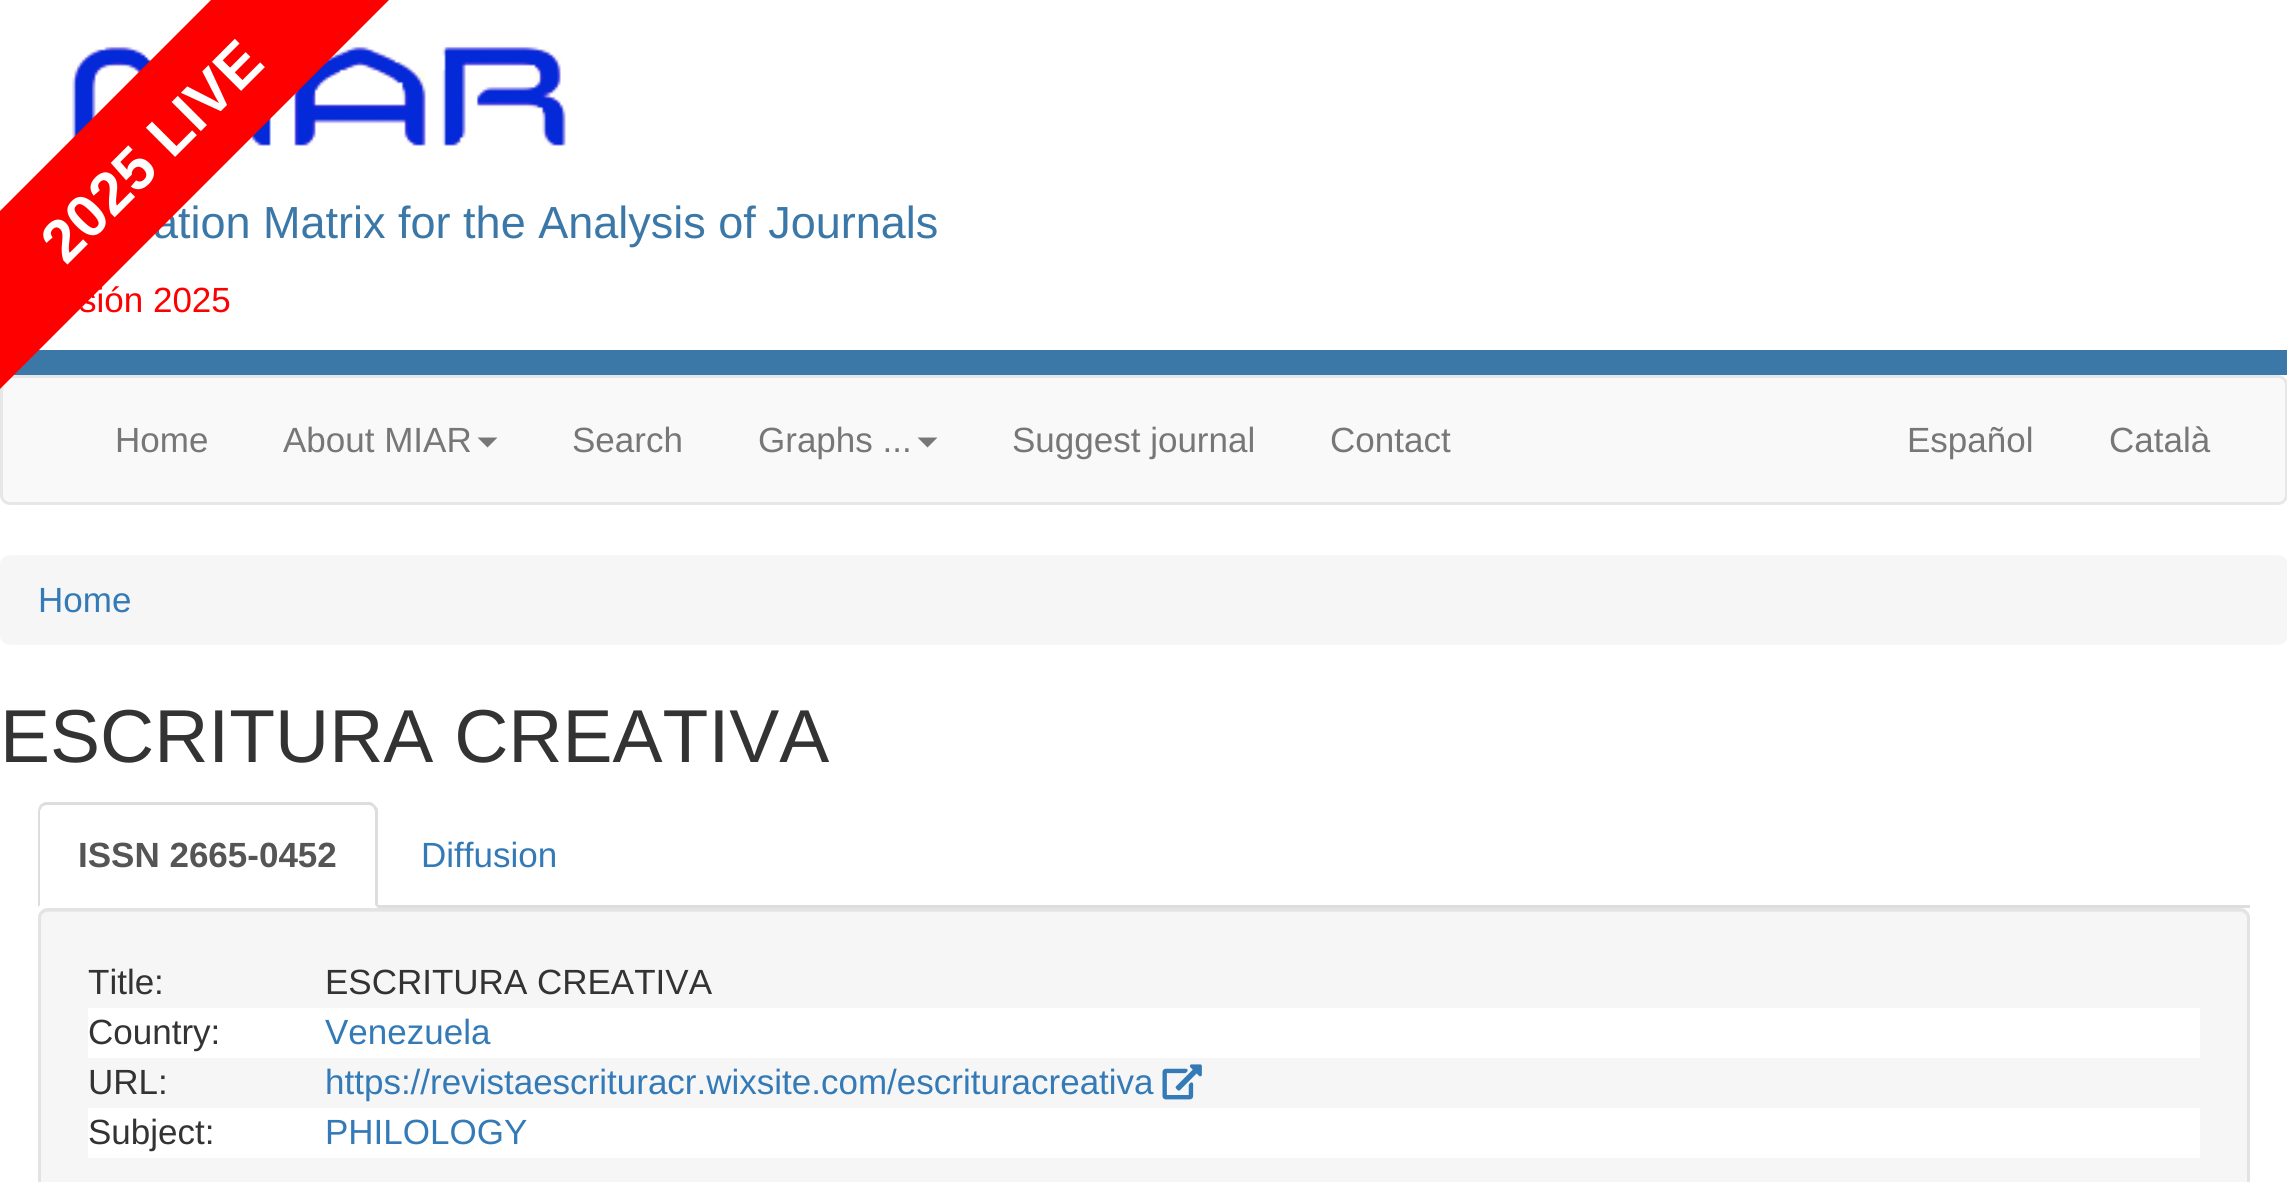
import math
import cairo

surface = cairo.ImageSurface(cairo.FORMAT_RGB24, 2287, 1182)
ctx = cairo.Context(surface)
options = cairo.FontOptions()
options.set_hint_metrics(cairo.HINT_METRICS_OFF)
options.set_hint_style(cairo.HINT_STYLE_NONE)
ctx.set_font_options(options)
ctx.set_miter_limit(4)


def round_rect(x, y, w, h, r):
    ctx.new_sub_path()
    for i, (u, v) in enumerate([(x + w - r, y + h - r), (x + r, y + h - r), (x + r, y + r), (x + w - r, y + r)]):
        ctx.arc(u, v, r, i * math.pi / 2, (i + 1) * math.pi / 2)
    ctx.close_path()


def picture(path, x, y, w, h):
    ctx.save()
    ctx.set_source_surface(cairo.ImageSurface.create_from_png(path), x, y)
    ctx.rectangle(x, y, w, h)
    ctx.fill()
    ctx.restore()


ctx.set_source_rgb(1, 1, 1)
ctx.paint()
ctx.set_source_rgb(0.235, 0.471, 0.655)
ctx.rectangle(14, 350, 2273, 25)
ctx.fill()
picture("img1.png", 46, 45, 520, 115)
ctx.select_font_face("Liberation Sans")
ctx.set_font_size(45)
ctx.move_to(153, 238)
ctx.show_text("ation Matrix for the Analysis of Journals")
ctx.set_source_rgb(0.973, 0.973, 0.973)
round_rect(1.5, 376.5, 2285, 127, 8.5)
ctx.fill_preserve()
ctx.set_source_rgb(0.906, 0.906, 0.906)
ctx.set_line_width(3)
ctx.stroke()
ctx.set_source_rgb(1, 0, 0)
ctx.new_path()
ctx.move_to(-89, 300)
ctx.line_to(300, -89)
ctx.line_to(389, 0)
ctx.line_to(0, 389)
ctx.close_path()
ctx.fill()
ctx.select_font_face("Liberation Sans", cairo.FONT_SLANT_NORMAL, cairo.FONT_WEIGHT_BOLD)
ctx.set_font_size(60)
ctx.set_source_rgb(1, 1, 1)
ctx.save()
ctx.translate(66, 266)
ctx.rotate(-45 * math.pi / 180)
ctx.move_to(0, 0)
ctx.show_text("2025 LIVE")
ctx.restore()
ctx.select_font_face("Liberation Sans")
ctx.set_font_size(35)
ctx.set_source_rgb(1, 0, 0)
ctx.move_to(79, 312)
ctx.show_text("sión 2025")
ctx.set_source_rgb(0.467, 0.467, 0.467)
ctx.move_to(115, 452)
ctx.show_text("Home")
ctx.move_to(283, 452)
ctx.show_text("About MIAR")
ctx.new_path()
ctx.move_to(477.5, 437.5)
ctx.line_to(497.5, 437.5)
ctx.line_to(487.5, 447.5)
ctx.close_path()
ctx.fill()
ctx.move_to(572, 452)
ctx.show_text("Search")
ctx.move_to(758, 452)
ctx.show_text("Graphs ...")
ctx.new_path()
ctx.move_to(917.5, 437.5)
ctx.line_to(937.5, 437.5)
ctx.line_to(927.5, 447.5)
ctx.close_path()
ctx.fill()
ctx.move_to(1012, 452)
ctx.show_text("Suggest journal")
ctx.move_to(1330, 452)
ctx.show_text("Contact")
ctx.move_to(1907, 452)
ctx.show_text("Español")
ctx.move_to(2109, 452)
ctx.show_text("Català")
ctx.set_source_rgb(0.961, 0.961, 0.961)
round_rect(0, 555, 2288, 90, 10)
ctx.fill()
ctx.set_source_rgb(0.2, 0.478, 0.718)
ctx.move_to(38, 612)
ctx.show_text("Home")
ctx.set_font_size(75)
ctx.set_source_rgb(0.2, 0.2, 0.2)
ctx.move_to(0, 762)
ctx.show_text("ESCRITURA CREATIVA")
ctx.set_source_rgb(0.867, 0.867, 0.867)
ctx.rectangle(378, 905, 1872, 3)
ctx.fill()
ctx.new_path()
ctx.move_to(48, 805)
ctx.curve_to(45, 805, 43, 806, 42, 807)
ctx.line_to(40, 805)
ctx.curve_to(41, 804, 43, 803, 45, 802)
ctx.line_to(371, 802)
ctx.line_to(375, 805)
ctx.line_to(373, 807)
ctx.curve_to(372, 806, 370, 805, 368, 805)
ctx.close_path()
ctx.fill()
ctx.new_path()
ctx.move_to(375, 805)
ctx.line_to(378, 809)
ctx.line_to(378, 908)
ctx.line_to(375, 905)
ctx.line_to(375, 811)
ctx.line_to(373, 807)
ctx.close_path()
ctx.fill()
ctx.new_path()
ctx.move_to(38, 907)
ctx.line_to(38, 812)
ctx.curve_to(38, 810, 39, 807, 40, 805)
ctx.line_to(42, 807)
ctx.line_to(40, 811)
ctx.line_to(40, 905)
ctx.close_path()
ctx.fill()
ctx.select_font_face("Liberation Sans", cairo.FONT_SLANT_NORMAL, cairo.FONT_WEIGHT_BOLD)
ctx.set_font_size(35)
ctx.set_source_rgb(0.333, 0.333, 0.333)
ctx.move_to(78, 867)
ctx.show_text("ISSN 2665-0452")
ctx.select_font_face("Liberation Sans")
ctx.set_source_rgb(0.2, 0.478, 0.718)
ctx.move_to(421, 867)
ctx.show_text("Diffusion")
ctx.set_source_rgb(0.961, 0.961, 0.961)
round_rect(38, 908, 2212, 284, 10)
ctx.fill()
ctx.set_source_rgb(0.914, 0.914, 0.914)
ctx.new_path()
ctx.move_to(48, 912)
ctx.line_to(2240, 912)
ctx.curve_to(2244, 912, 2248, 916, 2248, 920)
ctx.curve_to(2248, 915, 2246, 910, 2240, 910)
ctx.line_to(48, 910)
ctx.curve_to(42, 910, 40, 915, 40, 920)
ctx.curve_to(40, 916, 43, 912, 48, 912)
ctx.close_path()
ctx.fill()
round_rect(39.5, 909.5, 2209, 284, 8.5)
ctx.set_source_rgb(0.89, 0.89, 0.89)
ctx.stroke()
ctx.set_source_rgb(0.2, 0.2, 0.2)
ctx.move_to(88, 994)
ctx.show_text("Title:")
ctx.move_to(325, 994)
ctx.show_text("ESCRITURA CREATIVA")
ctx.set_source_rgb(1, 1, 1)
ctx.rectangle(88, 1008, 2112, 50)
ctx.fill()
ctx.set_source_rgb(0.2, 0.2, 0.2)
ctx.move_to(88, 1044)
ctx.show_text("Country:")
ctx.set_source_rgb(0.2, 0.478, 0.718)
ctx.move_to(325, 1044)
ctx.show_text("Venezuela")
ctx.set_source_rgb(0.2, 0.2, 0.2)
ctx.move_to(88, 1094)
ctx.show_text("URL:")
ctx.set_source_rgb(0.2, 0.478, 0.718)
ctx.move_to(325, 1094)
ctx.show_text("https://revistaescrituracr.wixsite.com/escrituracreativa")
picture("img2.png", 1162, 1064, 40, 36)
ctx.set_source_rgb(1, 1, 1)
ctx.rectangle(88, 1108, 2112, 50)
ctx.fill()
ctx.set_source_rgb(0.2, 0.2, 0.2)
ctx.move_to(88, 1144)
ctx.show_text("Subject:")
ctx.set_source_rgb(0.2, 0.478, 0.718)
ctx.move_to(325, 1144)
ctx.show_text("PHILOLOGY")
surface.write_to_png("page.png")
